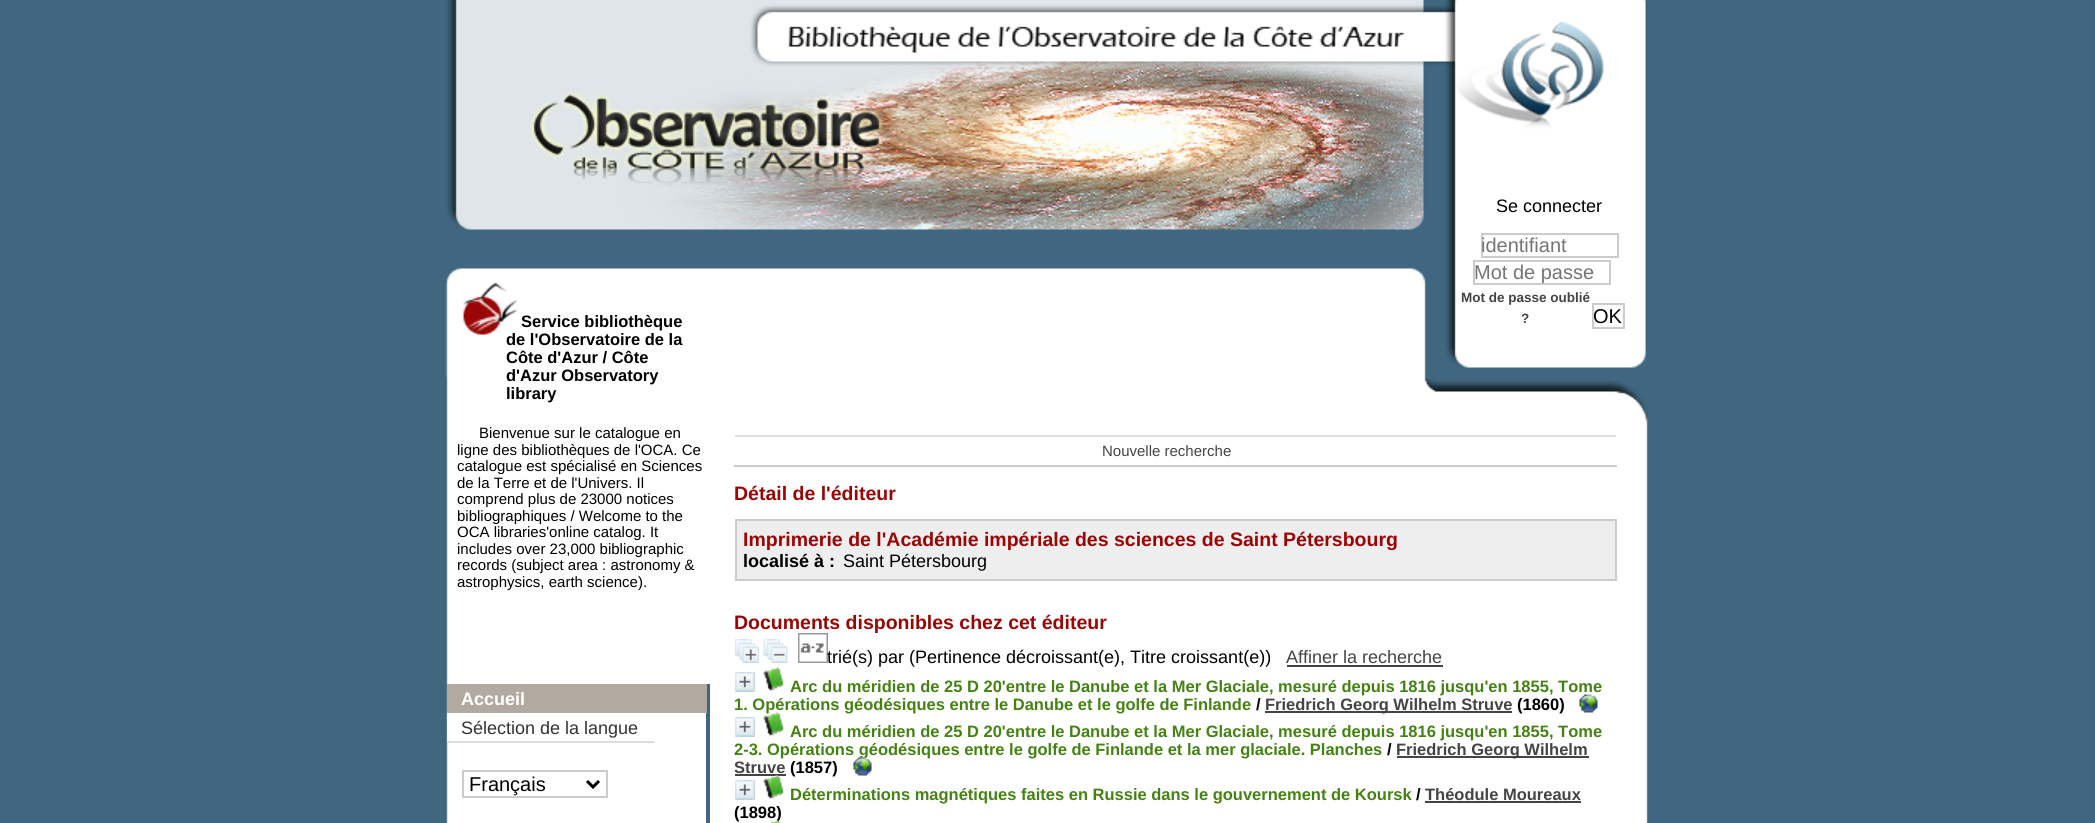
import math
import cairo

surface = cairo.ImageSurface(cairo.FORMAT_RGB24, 2095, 823)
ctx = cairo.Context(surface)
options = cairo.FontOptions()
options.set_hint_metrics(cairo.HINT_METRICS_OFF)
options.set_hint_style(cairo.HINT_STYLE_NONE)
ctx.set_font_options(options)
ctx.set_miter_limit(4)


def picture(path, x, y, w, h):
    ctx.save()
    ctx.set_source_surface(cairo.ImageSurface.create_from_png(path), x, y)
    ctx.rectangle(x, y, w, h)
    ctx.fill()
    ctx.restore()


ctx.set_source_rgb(0.251, 0.404, 0.498)
ctx.paint()
picture("img2.png", 435, 0, 1227, 823)
picture("img4.png", 445, 0, 1203, 378)
ctx.select_font_face("Liberation Sans")
ctx.set_font_size(18)
ctx.set_source_rgb(0, 0, 0)
ctx.move_to(1496, 212)
ctx.show_text("Se connecter")
ctx.rectangle(1482, 234, 136, 23)
ctx.set_source_rgb(0.8, 0.8, 0.8)
ctx.stroke()
ctx.set_font_size(20)
ctx.set_source_rgb(0.459, 0.459, 0.459)
ctx.move_to(1481, 252)
ctx.show_text("identifiant")
ctx.rectangle(1474, 261, 136, 23)
ctx.set_source_rgb(0.8, 0.8, 0.8)
ctx.stroke()
ctx.set_source_rgb(0.459, 0.459, 0.459)
ctx.move_to(1474, 279)
ctx.show_text("Mot de passe")
ctx.rectangle(1593, 304, 31, 24)
ctx.set_source_rgb(0.8, 0.8, 0.8)
ctx.stroke()
ctx.set_source_rgb(0, 0, 0)
ctx.move_to(1593, 323)
ctx.show_text("OK")
ctx.select_font_face("Liberation Sans", cairo.FONT_SLANT_NORMAL, cairo.FONT_WEIGHT_BOLD)
ctx.set_font_size(13.5)
ctx.set_source_rgb(0.267, 0.267, 0.267)
ctx.move_to(1461, 302)
ctx.show_text("Mot de passe oublié")
ctx.move_to(1521, 323)
ctx.show_text("?")
ctx.set_source_rgb(0.251, 0.404, 0.498)
ctx.rectangle(706, 684, 4, 139)
ctx.fill()
ctx.set_source_rgb(0.698, 0.667, 0.631)
ctx.rectangle(447, 684, 260, 29)
ctx.fill()
ctx.set_font_size(18)
ctx.set_source_rgb(1, 1, 1)
ctx.move_to(461, 705)
ctx.show_text("Accueil")
ctx.rectangle(447, 713, 1, 28)
ctx.fill()
ctx.set_source_rgb(0.867, 0.867, 0.867)
ctx.rectangle(447, 741, 207, 2)
ctx.fill()
ctx.select_font_face("Liberation Sans")
ctx.set_source_rgb(0.2, 0.2, 0.2)
ctx.move_to(461, 734)
ctx.show_text("Sélection de la langue")
ctx.rectangle(463, 771, 144, 26)
ctx.set_source_rgb(0.8, 0.8, 0.8)
ctx.stroke()
ctx.new_path()
ctx.move_to(587, 781)
ctx.line_to(593, 787)
ctx.line_to(599, 781)
ctx.set_source_rgb(0, 0, 0)
ctx.set_line_width(3)
ctx.stroke()
ctx.set_font_size(20)
ctx.move_to(469, 791)
ctx.show_text("Français")
picture("img1.png", 463, 282, 55, 53)
ctx.select_font_face("Liberation Sans", cairo.FONT_SLANT_NORMAL, cairo.FONT_WEIGHT_BOLD)
ctx.set_font_size(16.5)
ctx.move_to(521, 327)
ctx.show_text("Service bibliothèque")
ctx.move_to(506, 345)
ctx.show_text("de l'Observatoire de la")
ctx.move_to(506, 363)
ctx.show_text("Côte d'Azur / Côte")
ctx.move_to(506, 381)
ctx.show_text("d'Azur Observatory")
ctx.move_to(506, 399)
ctx.show_text("library")
ctx.select_font_face("Liberation Sans")
ctx.set_font_size(15)
ctx.move_to(479, 438)
ctx.show_text("Bienvenue sur le catalogue en")
ctx.move_to(457, 455)
ctx.show_text("ligne des bibliothèques de l'OCA. Ce")
ctx.move_to(457, 471)
ctx.show_text("catalogue est spécialisé en Sciences")
ctx.move_to(457, 488)
ctx.show_text("de la Terre et de l'Univers. Il")
ctx.move_to(457, 504)
ctx.show_text("comprend plus de 23000 notices")
ctx.move_to(457, 521)
ctx.show_text("bibliographiques / Welcome to the")
ctx.move_to(457, 537)
ctx.show_text("OCA libraries'online catalog. It")
ctx.move_to(457, 554)
ctx.show_text("includes over 23,000 bibliographic")
ctx.move_to(457, 570)
ctx.show_text("records (subject area : astronomy &")
ctx.move_to(457, 587)
ctx.show_text("astrophysics, earth science).")
picture("img3.png", 1424, 378, 224, 46)
ctx.set_source_rgb(0.867, 0.867, 0.867)
ctx.rectangle(735, 435, 882, 2)
ctx.fill()
ctx.set_source_rgb(1, 1, 1)
ctx.rectangle(1616, 435, 1, 2)
ctx.fill()
ctx.set_source_rgb(0.8, 0.8, 0.8)
ctx.rectangle(734, 465, 883, 2)
ctx.fill()
ctx.set_source_rgb(0.267, 0.267, 0.267)
ctx.move_to(1102, 456)
ctx.show_text("Nouvelle recherche")
ctx.select_font_face("Liberation Sans", cairo.FONT_SLANT_NORMAL, cairo.FONT_WEIGHT_BOLD)
ctx.set_font_size(19.5)
ctx.set_source_rgb(0.604, 0.02, 0.02)
ctx.move_to(734, 500)
ctx.show_text("Détail de l'éditeur")
ctx.set_source_rgb(0.933, 0.933, 0.933)
ctx.rectangle(736, 520, 880, 60)
ctx.fill_preserve()
ctx.set_source_rgb(0.8, 0.8, 0.8)
ctx.set_line_width(2)
ctx.stroke()
ctx.set_source_rgb(0.604, 0.02, 0.02)
ctx.move_to(743, 546)
ctx.show_text("Imprimerie de l'Académie impériale des sciences de Saint Pétersbourg")
ctx.set_font_size(18)
ctx.set_source_rgb(0, 0, 0)
ctx.move_to(743, 567)
ctx.show_text("localisé à :")
ctx.select_font_face("Liberation Sans")
ctx.move_to(843, 567)
ctx.show_text("Saint Pétersbourg")
ctx.select_font_face("Liberation Sans", cairo.FONT_SLANT_NORMAL, cairo.FONT_WEIGHT_BOLD)
ctx.set_font_size(19.5)
ctx.set_source_rgb(0.604, 0.02, 0.02)
ctx.move_to(734, 629)
ctx.show_text("Documents disponibles chez cet éditeur")
picture("img5.png", 735, 639, 24, 24)
picture("img6.png", 763, 639, 25, 24)
picture("img7.png", 798, 633, 30, 30)
ctx.select_font_face("Liberation Sans")
ctx.set_font_size(18)
ctx.set_source_rgb(0, 0, 0)
ctx.move_to(827, 663)
ctx.show_text("trié(s) par (Pertinence décroissant(e), Titre croissant(e))")
ctx.set_source_rgb(0.267, 0.267, 0.267)
ctx.move_to(1286, 663)
ctx.show_text("Affiner la recherche")
ctx.rectangle(1287, 665, 156, 2)
ctx.fill()
ctx.set_source_rgb(0.8, 0.8, 0.8)
ctx.rectangle(735, 672, 20, 20)
ctx.fill()
picture("img8.png", 763, 667, 21, 24)
picture("img9.png", 735, 672, 20, 20)
ctx.select_font_face("Liberation Sans", cairo.FONT_SLANT_NORMAL, cairo.FONT_WEIGHT_BOLD)
ctx.set_font_size(16.5)
ctx.set_source_rgb(0.267, 0.51, 0.071)
ctx.move_to(790, 692)
ctx.show_text("Arc du méridien de 25 D 20'entre le Danube et la Mer Glaciale, mesuré depuis 1816 jusqu'en 1855, Tome")
ctx.move_to(734, 710)
ctx.show_text("1. Opérations géodésiques entre le Danube et le golfe de Finlande")
ctx.set_source_rgb(0, 0, 0)
ctx.move_to(1256, 710)
ctx.show_text("/")
ctx.set_source_rgb(0.267, 0.267, 0.267)
ctx.rectangle(1265, 711, 247, 2)
ctx.fill()
ctx.move_to(1265, 710)
ctx.show_text("Friedrich Georg Wilhelm Struve")
ctx.set_source_rgb(0, 0, 0)
ctx.move_to(1517, 710)
ctx.show_text("(1860)")
picture("img10.png", 1579, 694, 19, 19)
ctx.set_source_rgb(0.8, 0.8, 0.8)
ctx.rectangle(735, 717, 20, 20)
ctx.fill()
picture("img11.png", 763, 712, 21, 24)
picture("img9.png", 735, 717, 20, 20)
ctx.set_source_rgb(0.267, 0.51, 0.071)
ctx.move_to(790, 737)
ctx.show_text("Arc du méridien de 25 D 20'entre le Danube et la Mer Glaciale, mesuré depuis 1816 jusqu'en 1855, Tome")
ctx.move_to(734, 755)
ctx.show_text("2-3. Opérations géodésiques entre le golfe de Finlande et la mer glaciale. Planches")
ctx.set_source_rgb(0, 0, 0)
ctx.move_to(1387, 755)
ctx.show_text("/")
ctx.set_source_rgb(0.267, 0.267, 0.267)
ctx.rectangle(1397, 756, 192, 2)
ctx.fill()
ctx.move_to(1396, 755)
ctx.show_text("Friedrich Georg Wilhelm")
ctx.move_to(734, 773)
ctx.show_text("Struve")
ctx.rectangle(735, 774, 51, 2)
ctx.fill()
ctx.set_source_rgb(0, 0, 0)
ctx.move_to(790, 773)
ctx.show_text("(1857)")
picture("img12.png", 853, 757, 19, 19)
ctx.set_source_rgb(0.8, 0.8, 0.8)
ctx.rectangle(735, 780, 20, 20)
ctx.fill()
picture("img13.png", 763, 775, 21, 24)
picture("img9.png", 735, 780, 20, 20)
ctx.set_source_rgb(0.267, 0.51, 0.071)
ctx.move_to(790, 800)
ctx.show_text("Déterminations magnétiques faites en Russie dans le gouvernement de Koursk")
ctx.set_source_rgb(0, 0, 0)
ctx.move_to(1416, 800)
ctx.show_text("/")
ctx.set_source_rgb(0.267, 0.267, 0.267)
ctx.move_to(1425, 800)
ctx.show_text("Théodule Moureaux")
ctx.rectangle(1425, 801, 156, 2)
ctx.fill()
ctx.set_source_rgb(0, 0, 0)
ctx.move_to(734, 818)
ctx.show_text("(1898)")
picture("img14.png", 770, 820, 11, 3)
surface.write_to_png("page.png")
